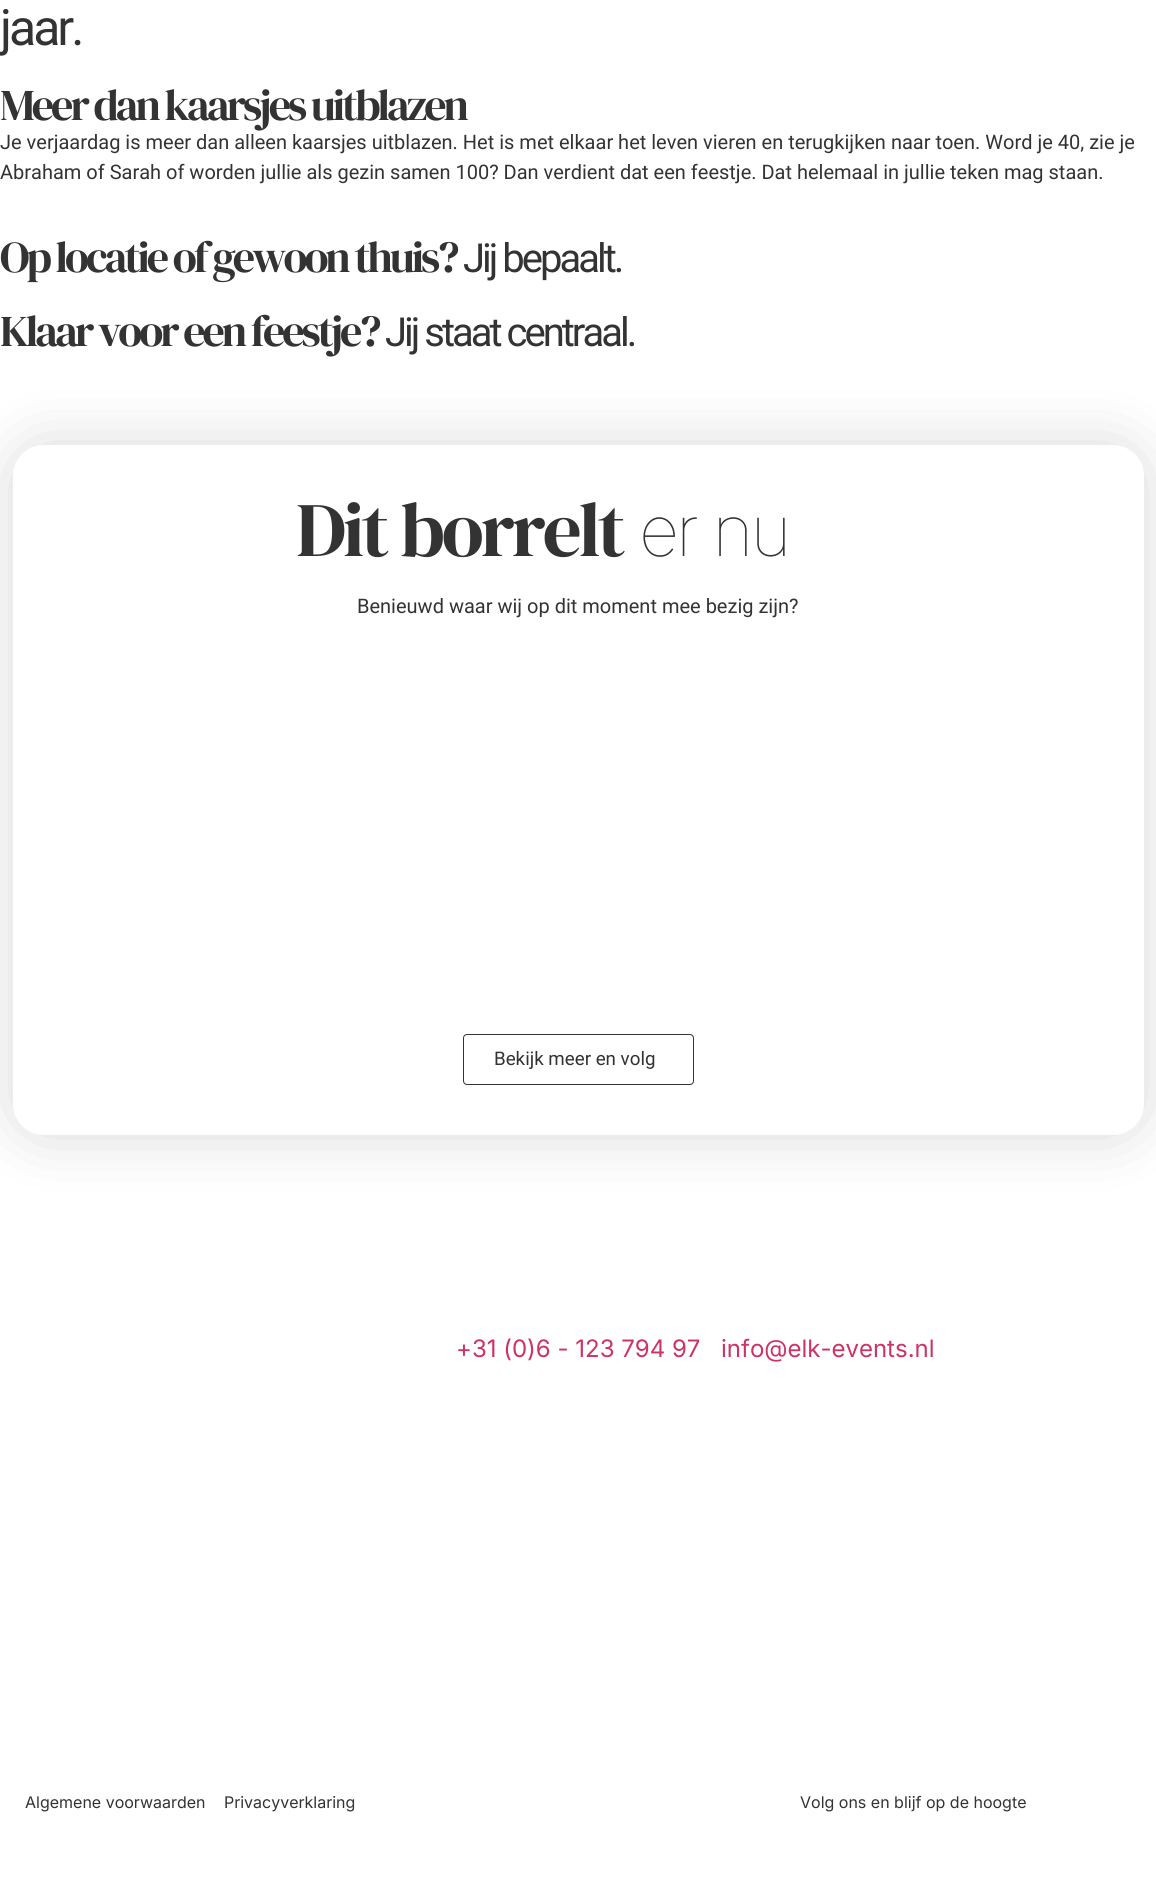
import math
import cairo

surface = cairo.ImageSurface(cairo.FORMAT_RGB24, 1156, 1878)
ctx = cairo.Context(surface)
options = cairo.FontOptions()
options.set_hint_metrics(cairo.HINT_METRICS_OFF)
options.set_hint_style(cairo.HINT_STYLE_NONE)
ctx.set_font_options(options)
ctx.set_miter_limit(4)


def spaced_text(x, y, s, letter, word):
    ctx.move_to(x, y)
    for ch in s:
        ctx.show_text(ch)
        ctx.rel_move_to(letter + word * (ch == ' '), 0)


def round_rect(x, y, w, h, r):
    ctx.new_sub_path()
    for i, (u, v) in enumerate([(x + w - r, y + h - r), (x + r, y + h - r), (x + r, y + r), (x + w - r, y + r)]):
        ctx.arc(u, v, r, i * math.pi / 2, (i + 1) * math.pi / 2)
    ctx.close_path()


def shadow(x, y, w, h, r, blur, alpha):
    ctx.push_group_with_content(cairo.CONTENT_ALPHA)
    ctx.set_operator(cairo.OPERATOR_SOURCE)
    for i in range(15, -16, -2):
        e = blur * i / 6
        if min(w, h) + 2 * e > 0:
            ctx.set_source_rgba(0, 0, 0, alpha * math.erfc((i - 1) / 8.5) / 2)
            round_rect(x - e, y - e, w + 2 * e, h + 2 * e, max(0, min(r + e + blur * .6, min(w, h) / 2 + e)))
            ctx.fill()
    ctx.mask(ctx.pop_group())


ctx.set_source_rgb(1, 1, 1)
ctx.paint()
ctx.select_font_face("Roboto")
ctx.set_font_size(50)
ctx.set_source_rgb(0.2, 0.2, 0.2)
spaced_text(0, 45, "jaar.", -3, 0)
ctx.select_font_face("DM Serif Display")
ctx.set_font_size(44)
spaced_text(0, 120, "Meer dan kaarsjes uitblazen", -3, 0)
ctx.select_font_face("Roboto")
ctx.set_font_size(20)
ctx.move_to(0, 149)
ctx.show_text("Je verjaardag is meer dan alleen kaarsjes uitblazen. Het is met elkaar het leven vieren en terugkijken naar toen. Word je 40, zie je")
ctx.move_to(0, 179)
ctx.show_text("Abraham of Sarah of worden jullie als gezin samen 100? Dan verdient dat een feestje. Dat helemaal in jullie teken mag staan.")
ctx.select_font_face("DM Serif Display")
ctx.set_font_size(44)
spaced_text(0, 272, "Op locatie of gewoon thuis?", -3, 0)
ctx.select_font_face("Roboto")
ctx.set_font_size(40)
spaced_text(463, 272, "Jij bepaalt.", -3, 0)
ctx.select_font_face("DM Serif Display")
ctx.set_font_size(44)
spaced_text(0, 346, "Klaar voor een feestje?", -3, 0)
ctx.select_font_face("Roboto")
ctx.set_font_size(40)
spaced_text(385, 346, "Jij staat centraal.", -3, 0)
ctx.set_source_rgb(0, 0, 0)
shadow(13, 445, 1131, 690, 31, 31, 0.15)
ctx.set_source_rgb(1, 1, 1)
round_rect(13, 445, 1131, 690, 31)
ctx.fill()
ctx.select_font_face("DM Serif Display")
ctx.set_font_size(77)
ctx.set_source_rgb(0.2, 0.2, 0.2)
spaced_text(296, 556, "Dit borrelt", -3, 0)
ctx.select_font_face("Inter Thin")
ctx.set_font_size(70)
spaced_text(639, 556, "er nu", -3, 0)
ctx.select_font_face("Roboto")
ctx.set_font_size(20)
ctx.move_to(357, 613)
ctx.show_text("Benieuwd waar wij op dit moment mee bezig zijn?")
round_rect(463.5, 1034.5, 230, 50, 3.5)
ctx.set_line_width(1)
ctx.stroke()
ctx.set_font_size(18.75)
ctx.move_to(494, 1065)
ctx.show_text("Bekijk meer en volg")
ctx.select_font_face("Inter")
ctx.set_font_size(24)
ctx.set_source_rgb(0.8, 0.2, 0.4)
ctx.move_to(456, 1357)
ctx.show_text("+31 (0)6 - 123 794 97")
ctx.move_to(721, 1357)
ctx.show_text("info@elk-events.nl")
ctx.set_font_size(16)
ctx.set_source_rgb(0.2, 0.2, 0.2)
ctx.move_to(25, 1808)
ctx.show_text("Algemene voorwaarden")
ctx.move_to(224, 1808)
ctx.show_text("Privacyverklaring")
ctx.move_to(800, 1808)
ctx.show_text("Volg ons en blijf op de hoogte")
surface.write_to_png("page.png")
